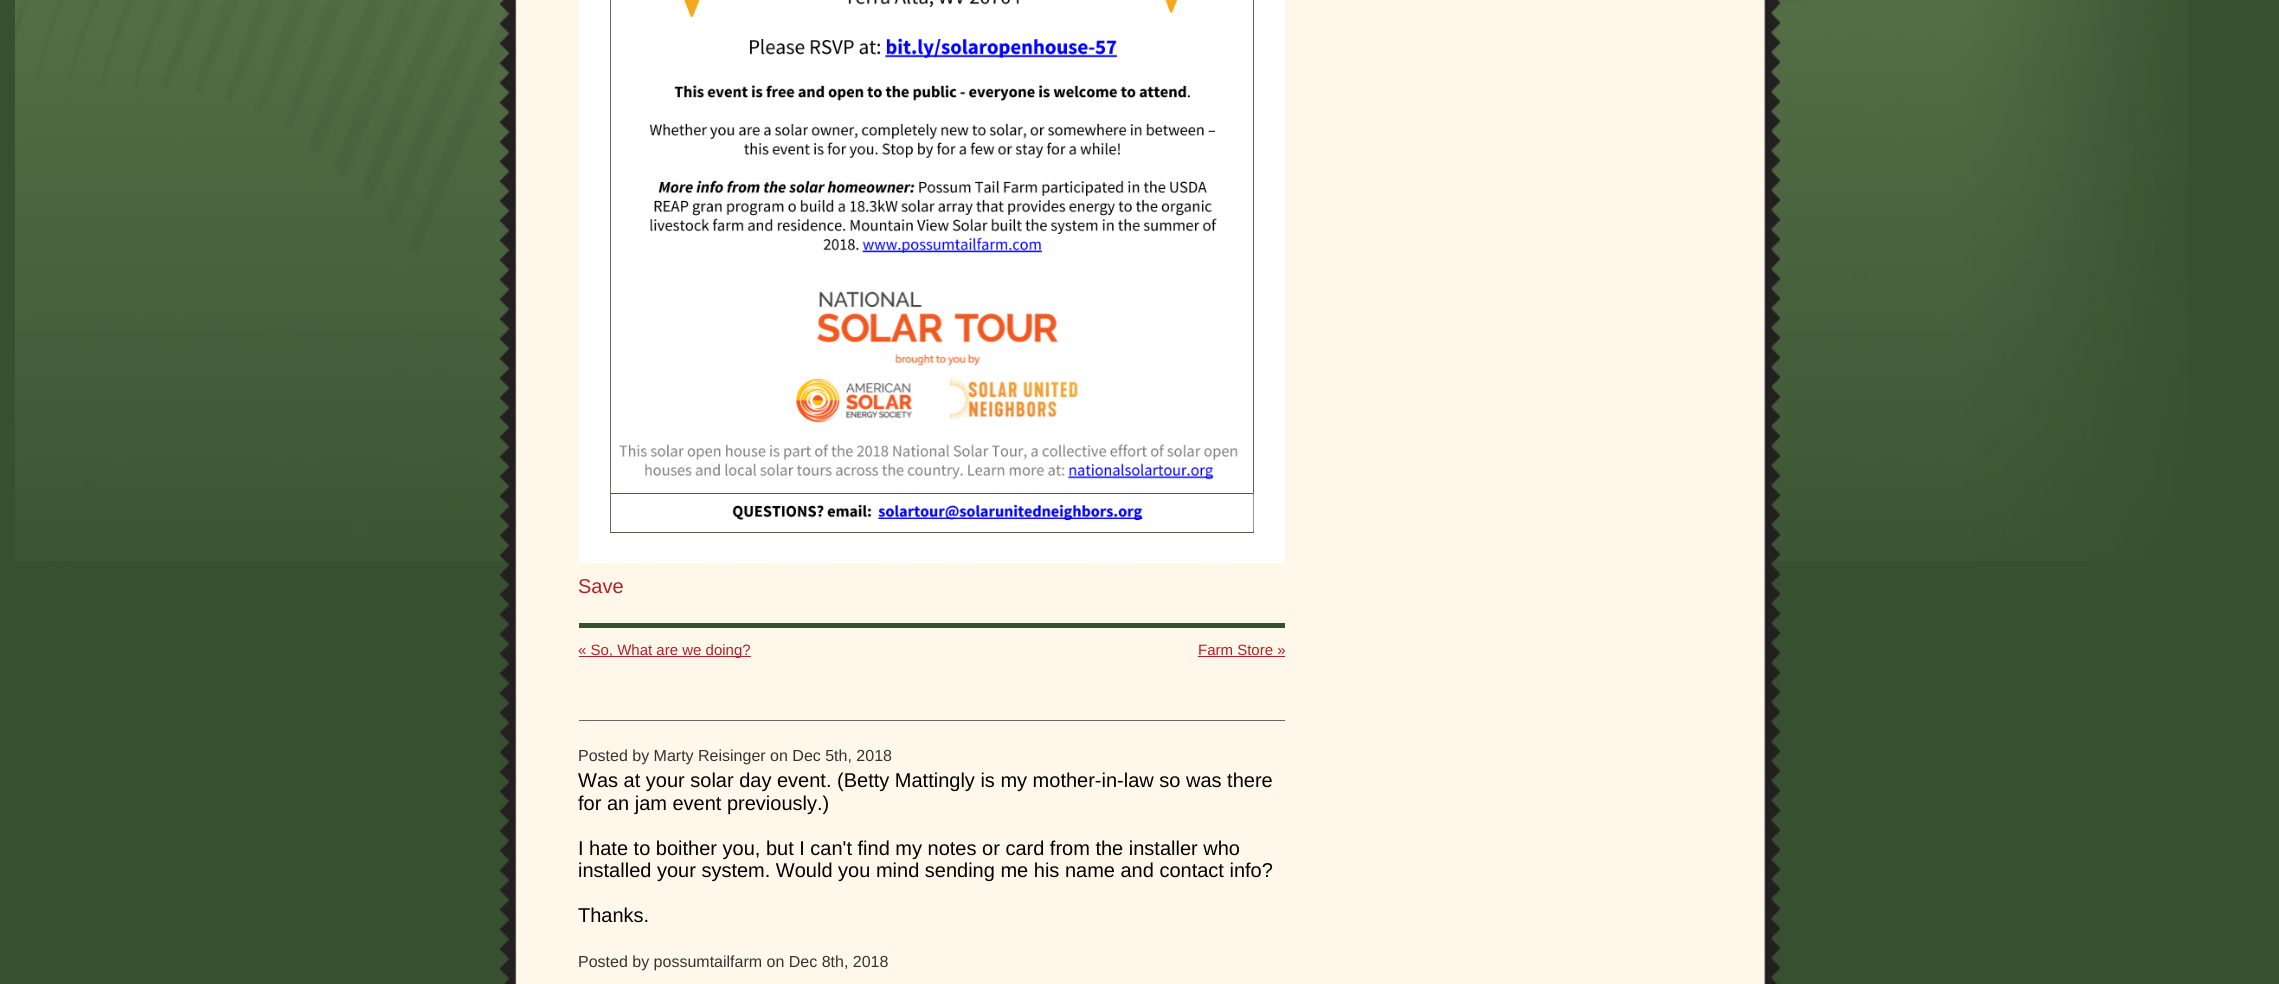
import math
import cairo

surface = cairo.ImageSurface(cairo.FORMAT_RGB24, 2279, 984)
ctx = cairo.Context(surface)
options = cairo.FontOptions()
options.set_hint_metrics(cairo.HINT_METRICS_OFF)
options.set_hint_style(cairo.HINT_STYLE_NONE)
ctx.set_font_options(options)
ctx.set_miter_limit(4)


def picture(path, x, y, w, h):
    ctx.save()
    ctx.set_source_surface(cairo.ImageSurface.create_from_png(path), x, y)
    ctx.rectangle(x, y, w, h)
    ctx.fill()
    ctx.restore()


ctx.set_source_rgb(0.216, 0.314, 0.188)
ctx.paint()
picture("img1.png", 15, 0, 2173, 561)
picture("img2.png", 500, 0, 1280, 984)
picture("img3.png", 578, 0, 707, 564)
ctx.select_font_face("Liberation Sans")
ctx.set_font_size(20)
ctx.set_source_rgb(0.698, 0.125, 0.157)
ctx.move_to(578, 593)
ctx.show_text("Save")
ctx.set_source_rgb(0.216, 0.314, 0.188)
ctx.rectangle(579, 623, 706, 5)
ctx.fill()
ctx.set_source_rgb(0.698, 0.125, 0.157)
ctx.rectangle(579, 656, 172, 1)
ctx.fill()
ctx.set_font_size(15)
ctx.move_to(578, 655)
ctx.show_text("« So, What are we doing?")
ctx.move_to(1198, 655)
ctx.show_text("Farm Store »")
ctx.rectangle(1198, 656, 87, 1)
ctx.fill()
ctx.set_source_rgb(0.4, 0.4, 0.4)
ctx.rectangle(579, 720, 706, 1)
ctx.fill()
ctx.set_font_size(16)
ctx.set_source_rgb(0.2, 0.2, 0.2)
ctx.move_to(578, 761)
ctx.show_text("Posted by Marty Reisinger on Dec 5th, 2018")
ctx.set_font_size(20)
ctx.set_source_rgb(0, 0, 0)
ctx.move_to(578, 787)
ctx.show_text("Was at your solar day event. (Betty Mattingly is my mother-in-law so was there")
ctx.move_to(578, 810)
ctx.show_text("for an jam event previously.)")
ctx.move_to(578, 855)
ctx.show_text("I hate to boither you, but I can't find my notes or card from the installer who")
ctx.move_to(578, 877)
ctx.show_text("installed your system. Would you mind sending me his name and contact info?")
ctx.move_to(578, 922)
ctx.show_text("Thanks.")
ctx.set_font_size(16)
ctx.set_source_rgb(0.2, 0.2, 0.2)
ctx.move_to(578, 967)
ctx.show_text("Posted by possumtailfarm on Dec 8th, 2018")
surface.write_to_png("page.png")
